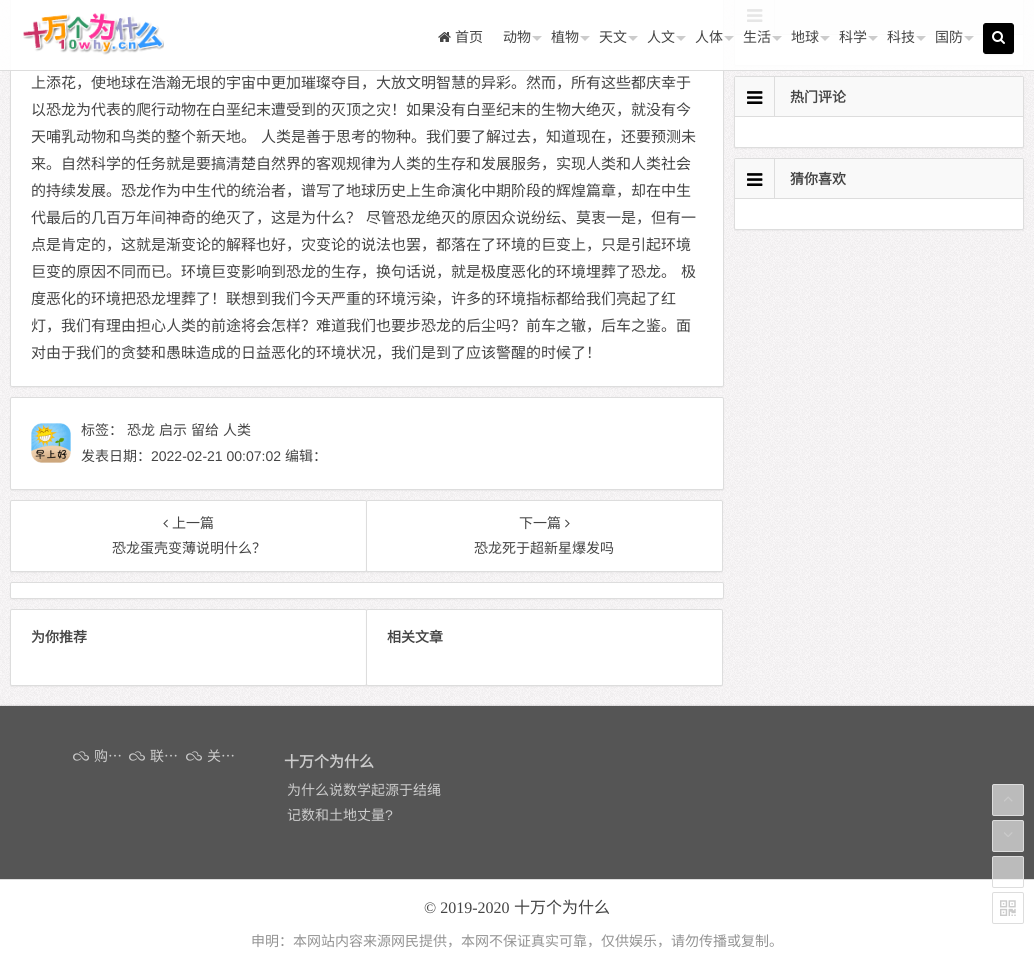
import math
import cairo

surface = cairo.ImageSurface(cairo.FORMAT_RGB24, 1034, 974)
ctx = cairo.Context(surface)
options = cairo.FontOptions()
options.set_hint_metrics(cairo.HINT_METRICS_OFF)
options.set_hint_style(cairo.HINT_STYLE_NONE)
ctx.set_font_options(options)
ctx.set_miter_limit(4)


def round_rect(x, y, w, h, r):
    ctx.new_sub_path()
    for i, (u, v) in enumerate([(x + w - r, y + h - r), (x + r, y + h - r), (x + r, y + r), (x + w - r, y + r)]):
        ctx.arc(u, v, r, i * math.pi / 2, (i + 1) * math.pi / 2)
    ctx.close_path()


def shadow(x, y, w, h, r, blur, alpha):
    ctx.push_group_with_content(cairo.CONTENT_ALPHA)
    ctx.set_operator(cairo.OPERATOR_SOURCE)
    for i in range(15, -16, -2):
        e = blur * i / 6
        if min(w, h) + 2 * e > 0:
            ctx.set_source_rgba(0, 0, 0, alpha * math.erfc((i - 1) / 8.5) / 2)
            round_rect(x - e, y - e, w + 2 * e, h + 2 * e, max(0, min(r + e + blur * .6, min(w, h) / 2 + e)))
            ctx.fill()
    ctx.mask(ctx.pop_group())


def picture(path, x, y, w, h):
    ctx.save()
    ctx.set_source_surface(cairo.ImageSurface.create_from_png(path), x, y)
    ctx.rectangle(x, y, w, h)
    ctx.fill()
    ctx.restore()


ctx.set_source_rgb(1, 1, 1)
ctx.paint()
picture("img1.png", 0, 0, 1034, 706)
ctx.set_source_rgb(0, 0, 0)
shadow(10, -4, 714, 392, 2, 0.5, 0.04)
ctx.set_source_rgb(1, 1, 1)
round_rect(10.5, -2.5, 713, 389, 1.5)
ctx.fill_preserve()
ctx.set_source_rgb(0.867, 0.867, 0.867)
ctx.set_line_width(1)
ctx.stroke()
ctx.set_source_rgb(0, 0, 0)
shadow(734, -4, 290, 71, 2, 0.5, 0.04)
ctx.set_source_rgb(1, 1, 1)
round_rect(734.5, -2.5, 289, 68, 1.5)
ctx.fill_preserve()
ctx.set_source_rgb(0.867, 0.867, 0.867)
ctx.stroke()
ctx.set_source_rgb(0.973, 0.973, 0.973)
ctx.rectangle(735, 0, 288, 34)
ctx.fill()
ctx.set_source_rgb(0.867, 0.867, 0.867)
ctx.rectangle(735, 34, 288, 1)
ctx.fill()
ctx.rectangle(774, 0, 1, 35)
ctx.fill()
picture("img8.png", 747, 9, 16, 13)
ctx.set_source_rgba(1, 1, 1, 0.9)
ctx.rectangle(0, 0, 1034, 70)
ctx.fill()
ctx.set_source_rgb(0.867, 0.867, 0.867)
ctx.rectangle(0, 70, 1034, 1)
ctx.fill()
picture("img2.png", 23, 13, 141, 42)
picture("img3.png", 438, 32, 13, 10)
ctx.select_font_face("Noto Sans CJK SC")
ctx.set_font_size(14)
ctx.set_source_rgb(0.267, 0.267, 0.267)
ctx.move_to(455, 42)
ctx.show_text("首页")
ctx.move_to(503, 42)
ctx.show_text("动物")
ctx.set_source_rgb(0.8, 0.8, 0.8)
ctx.new_path()
ctx.move_to(532, 36)
ctx.line_to(542, 36)
ctx.line_to(537, 41)
ctx.close_path()
ctx.fill()
ctx.set_source_rgb(0.267, 0.267, 0.267)
ctx.move_to(551, 42)
ctx.show_text("植物")
ctx.set_source_rgb(0.8, 0.8, 0.8)
ctx.new_path()
ctx.move_to(580, 36)
ctx.line_to(590, 36)
ctx.line_to(585, 41)
ctx.close_path()
ctx.fill()
ctx.set_source_rgb(0.267, 0.267, 0.267)
ctx.move_to(599, 42)
ctx.show_text("天文")
ctx.set_source_rgb(0.8, 0.8, 0.8)
ctx.new_path()
ctx.move_to(628, 36)
ctx.line_to(638, 36)
ctx.line_to(633, 41)
ctx.close_path()
ctx.fill()
ctx.set_source_rgb(0.267, 0.267, 0.267)
ctx.move_to(647, 42)
ctx.show_text("人文")
ctx.set_source_rgb(0.8, 0.8, 0.8)
ctx.new_path()
ctx.move_to(676, 36)
ctx.line_to(686, 36)
ctx.line_to(681, 41)
ctx.close_path()
ctx.fill()
ctx.set_source_rgb(0.267, 0.267, 0.267)
ctx.move_to(695, 42)
ctx.show_text("人体")
ctx.set_source_rgb(0.8, 0.8, 0.8)
ctx.new_path()
ctx.move_to(724, 36)
ctx.line_to(734, 36)
ctx.line_to(729, 41)
ctx.close_path()
ctx.fill()
ctx.set_source_rgb(0.267, 0.267, 0.267)
ctx.move_to(743, 42)
ctx.show_text("生活")
ctx.set_source_rgb(0.8, 0.8, 0.8)
ctx.new_path()
ctx.move_to(772, 36)
ctx.line_to(782, 36)
ctx.line_to(777, 41)
ctx.close_path()
ctx.fill()
ctx.set_source_rgb(0.267, 0.267, 0.267)
ctx.move_to(791, 42)
ctx.show_text("地球")
ctx.set_source_rgb(0.8, 0.8, 0.8)
ctx.new_path()
ctx.move_to(820, 36)
ctx.line_to(830, 36)
ctx.line_to(825, 41)
ctx.close_path()
ctx.fill()
ctx.set_source_rgb(0.267, 0.267, 0.267)
ctx.move_to(839, 42)
ctx.show_text("科学")
ctx.set_source_rgb(0.8, 0.8, 0.8)
ctx.new_path()
ctx.move_to(868, 36)
ctx.line_to(878, 36)
ctx.line_to(873, 41)
ctx.close_path()
ctx.fill()
ctx.set_source_rgb(0.267, 0.267, 0.267)
ctx.move_to(887, 42)
ctx.show_text("科技")
ctx.set_source_rgb(0.8, 0.8, 0.8)
ctx.new_path()
ctx.move_to(916, 36)
ctx.line_to(926, 36)
ctx.line_to(921, 41)
ctx.close_path()
ctx.fill()
ctx.set_source_rgb(0.267, 0.267, 0.267)
ctx.move_to(935, 42)
ctx.show_text("国防")
ctx.set_source_rgb(0.8, 0.8, 0.8)
ctx.new_path()
ctx.move_to(964, 36)
ctx.line_to(974, 36)
ctx.line_to(969, 41)
ctx.close_path()
ctx.fill()
ctx.set_source_rgb(0, 0, 0)
shadow(983, 24, 31, 31, 3, 0.5, 0.04)
ctx.set_source_rgb(0, 0, 0)
round_rect(983.5, 23.5, 30, 30, 2.5)
ctx.fill_preserve()
ctx.stroke()
picture("img4.png", 992, 31, 13, 13)
ctx.set_font_size(15)
ctx.set_source_rgb(0.267, 0.267, 0.267)
ctx.move_to(31, 88)
ctx.show_text("上添花，使地球在浩瀚无垠的宇宙中更加璀璨夺目，大放文明智慧的异彩。然而，所有这些都庆幸于")
ctx.move_to(31, 115)
ctx.show_text("以恐龙为代表的爬行动物在白垩纪末遭受到的灭顶之灾！如果没有白垩纪末的生物大绝灭，就没有今")
ctx.move_to(31, 142)
ctx.show_text("天哺乳动物和鸟类的整个新天地。")
ctx.move_to(261, 142)
ctx.show_text("人类是善于思考的物种。我们要了解过去，知道现在，还要预测未")
ctx.move_to(31, 169)
ctx.show_text("来。自然科学的任务就是要搞清楚自然界的客观规律为人类的生存和发展服务，实现人类和人类社会")
ctx.move_to(31, 196)
ctx.show_text("的持续发展。恐龙作为中生代的统治者，谱写了地球历史上生命演化中期阶段的辉煌篇章，却在中生")
ctx.move_to(31, 223)
ctx.show_text("代最后的几百万年间神奇的绝灭了，这是为什么？")
ctx.move_to(366, 223)
ctx.show_text("尽管恐龙绝灭的原因众说纷纭、莫衷一是，但有一")
ctx.move_to(31, 250)
ctx.show_text("点是肯定的，这就是渐变论的解释也好，灾变论的说法也罢，都落在了环境的巨变上，只是引起环境")
ctx.move_to(31, 277)
ctx.show_text("巨变的原因不同而已。环境巨变影响到恐龙的生存，换句话说，就是极度恶化的环境埋葬了恐龙。")
ctx.move_to(681, 277)
ctx.show_text("极")
ctx.move_to(31, 304)
ctx.show_text("度恶化的环境把恐龙埋葬了！联想到我们今天严重的环境污染，许多的环境指标都给我们亮起了红")
ctx.move_to(31, 331)
ctx.show_text("灯，我们有理由担心人类的前途将会怎样？难道我们也要步恐龙的后尘吗？前车之辙，后车之鉴。面")
ctx.move_to(31, 358)
ctx.show_text("对由于我们的贪婪和愚昧造成的日益恶化的环境状况，我们是到了应该警醒的时候了！")
ctx.set_source_rgb(0, 0, 0)
shadow(10, 398, 714, 93, 2, 0.5, 0.04)
ctx.set_source_rgb(1, 1, 1)
round_rect(10.5, 397.5, 713, 92, 1.5)
ctx.fill_preserve()
ctx.set_source_rgb(0.867, 0.867, 0.867)
ctx.stroke()
picture("img5.png", 31, 423, 40, 40)
ctx.set_font_size(14)
ctx.set_source_rgb(0.267, 0.267, 0.267)
ctx.move_to(81, 435)
ctx.show_text("标签：")
ctx.move_to(127, 435)
ctx.show_text("恐龙")
ctx.move_to(159, 435)
ctx.show_text("启示")
ctx.move_to(191, 435)
ctx.show_text("留给")
ctx.move_to(223, 435)
ctx.show_text("人类")
ctx.move_to(81, 461)
ctx.show_text("发表日期：")
ctx.select_font_face("Liberation Sans")
ctx.move_to(151, 461)
ctx.show_text("2022-02-21 00:07:02")
ctx.select_font_face("Noto Sans CJK SC")
ctx.move_to(285, 461)
ctx.show_text("编辑：")
ctx.set_source_rgb(0, 0, 0)
shadow(10, 501, 357, 72, 2, 0.5, 0.04)
ctx.set_source_rgb(1, 1, 1)
round_rect(10.5, 500.5, 356, 71, 1.5)
ctx.fill_preserve()
ctx.set_source_rgb(0.867, 0.867, 0.867)
ctx.stroke()
picture("img6.png", 163, 519, 5, 9)
ctx.set_source_rgb(0.267, 0.267, 0.267)
ctx.move_to(172, 528)
ctx.show_text("上一篇")
ctx.move_to(112, 553)
ctx.show_text("恐龙蛋壳变薄说明什么？")
ctx.set_source_rgb(0, 0, 0)
shadow(366, 501, 357, 72, 2, 0.5, 0.04)
ctx.set_source_rgb(1, 1, 1)
round_rect(366.5, 500.5, 356, 71, 1.5)
ctx.fill_preserve()
ctx.set_source_rgb(0.867, 0.867, 0.867)
ctx.stroke()
ctx.set_source_rgb(0.267, 0.267, 0.267)
ctx.move_to(519, 528)
ctx.show_text("下一篇")
picture("img7.png", 565, 519, 5, 9)
ctx.move_to(474, 553)
ctx.show_text("恐龙死于超新星爆发吗")
ctx.set_source_rgb(0, 0, 0)
shadow(10, 583, 714, 17, 2, 0.5, 0.04)
ctx.set_source_rgb(1, 1, 1)
round_rect(10.5, 582.5, 713, 16, 1.5)
ctx.fill_preserve()
ctx.set_source_rgb(0.867, 0.867, 0.867)
ctx.stroke()
ctx.set_source_rgb(0, 0, 0)
shadow(10, 610, 357, 77, 2, 0.5, 0.04)
ctx.set_source_rgb(1, 1, 1)
round_rect(10.5, 609.5, 356, 76, 1.5)
ctx.fill_preserve()
ctx.set_source_rgb(0.867, 0.867, 0.867)
ctx.stroke()
ctx.select_font_face("Noto Sans CJK SC", cairo.FONT_SLANT_NORMAL, cairo.FONT_WEIGHT_BOLD)
ctx.set_source_rgb(0.267, 0.267, 0.267)
ctx.move_to(31, 642)
ctx.show_text("为你推荐")
ctx.set_source_rgb(0, 0, 0)
shadow(366, 610, 357, 77, 2, 0.5, 0.04)
ctx.set_source_rgb(1, 1, 1)
round_rect(366.5, 609.5, 356, 76, 1.5)
ctx.fill_preserve()
ctx.set_source_rgb(0.867, 0.867, 0.867)
ctx.stroke()
ctx.set_source_rgb(0.267, 0.267, 0.267)
ctx.move_to(387, 642)
ctx.show_text("相关文章")
ctx.set_source_rgb(0, 0, 0)
shadow(734, 77, 290, 72, 2, 0.5, 0.04)
ctx.set_source_rgb(1, 1, 1)
round_rect(734.5, 76.5, 289, 71, 1.5)
ctx.fill_preserve()
ctx.set_source_rgb(0.867, 0.867, 0.867)
ctx.stroke()
ctx.set_source_rgb(0.973, 0.973, 0.973)
ctx.rectangle(735, 77, 288, 39)
ctx.fill()
ctx.set_source_rgb(0.867, 0.867, 0.867)
ctx.rectangle(735, 116, 288, 1)
ctx.fill()
ctx.rectangle(774, 77, 1, 40)
ctx.fill()
picture("img8.png", 747, 91, 16, 13)
ctx.set_source_rgb(0.267, 0.267, 0.267)
ctx.move_to(790, 102)
ctx.show_text("热门评论")
ctx.set_source_rgb(0, 0, 0)
shadow(734, 159, 290, 72, 2, 0.5, 0.04)
ctx.set_source_rgb(1, 1, 1)
round_rect(734.5, 158.5, 289, 71, 1.5)
ctx.fill_preserve()
ctx.set_source_rgb(0.867, 0.867, 0.867)
ctx.stroke()
ctx.set_source_rgb(0.973, 0.973, 0.973)
ctx.rectangle(735, 159, 288, 39)
ctx.fill()
ctx.set_source_rgb(0.867, 0.867, 0.867)
ctx.rectangle(735, 198, 288, 1)
ctx.fill()
ctx.rectangle(774, 159, 1, 40)
ctx.fill()
picture("img8.png", 747, 173, 16, 13)
ctx.set_source_rgb(0.267, 0.267, 0.267)
ctx.move_to(790, 184)
ctx.show_text("猜你喜欢")
ctx.set_source_rgb(0, 0, 0)
shadow(0, 705, 1034, 173, 0, 0.5, 0.1)
ctx.set_source_rgb(0.333, 0.333, 0.333)
ctx.rectangle(0, 706, 1034, 173)
ctx.fill()
picture("img9.png", 73, 751, 16, 10)
ctx.select_font_face("Noto Sans CJK SC")
ctx.set_source_rgb(0.8, 0.8, 0.8)
ctx.move_to(94, 761)
ctx.show_text("购…")
picture("img9.png", 129, 751, 16, 10)
ctx.move_to(150, 761)
ctx.show_text("联…")
picture("img9.png", 186, 751, 16, 10)
ctx.move_to(207, 761)
ctx.show_text("关…")
ctx.select_font_face("Noto Sans CJK SC", cairo.FONT_SLANT_NORMAL, cairo.FONT_WEIGHT_BOLD)
ctx.set_font_size(15)
ctx.move_to(284, 767)
ctx.show_text("十万个为什么")
ctx.select_font_face("Noto Sans CJK SC")
ctx.set_font_size(14)
ctx.move_to(287, 795)
ctx.show_text("为什么说数学起源于结绳")
ctx.move_to(287, 820)
ctx.show_text("记数和土地丈量")
ctx.select_font_face("Liberation Sans")
ctx.move_to(385, 820)
ctx.show_text("?")
ctx.set_source_rgb(0.733, 0.733, 0.733)
round_rect(992.5, 784.5, 31, 31, 1.5)
ctx.fill_preserve()
ctx.set_source_rgb(0.867, 0.867, 0.867)
ctx.stroke()
picture("img10.png", 1004, 796, 9, 6)
ctx.set_source_rgb(0.733, 0.733, 0.733)
round_rect(992.5, 820.5, 31, 31, 1.5)
ctx.fill_preserve()
ctx.set_source_rgb(0.867, 0.867, 0.867)
ctx.stroke()
picture("img11.png", 1004, 832, 9, 5)
ctx.rectangle(0, 879, 1034, 1)
ctx.fill()
ctx.set_source_rgba(1, 1, 1, 0.6)
round_rect(992.5, 856.5, 31, 31, 1.5)
ctx.fill_preserve()
ctx.set_source_rgb(0.867, 0.867, 0.867)
ctx.stroke()
round_rect(992.5, 892.5, 31, 31, 1.5)
ctx.stroke()
picture("img12.png", 1000, 900, 16, 16)
ctx.select_font_face("Liberation Serif")
ctx.set_font_size(16)
ctx.set_source_rgb(0.267, 0.267, 0.267)
ctx.move_to(424, 913)
ctx.show_text("© 2019-2020")
ctx.select_font_face("Noto Sans CJK SC")
ctx.move_to(514, 913)
ctx.show_text("十万个为什么")
ctx.set_font_size(14)
ctx.set_source_rgb(0.576, 0.576, 0.576)
ctx.move_to(251, 946)
ctx.show_text("申明：本网站内容来源网民提供，本网不保证真实可靠，仅供娱乐，请勿传播或复制。")
surface.write_to_png("page.png")
